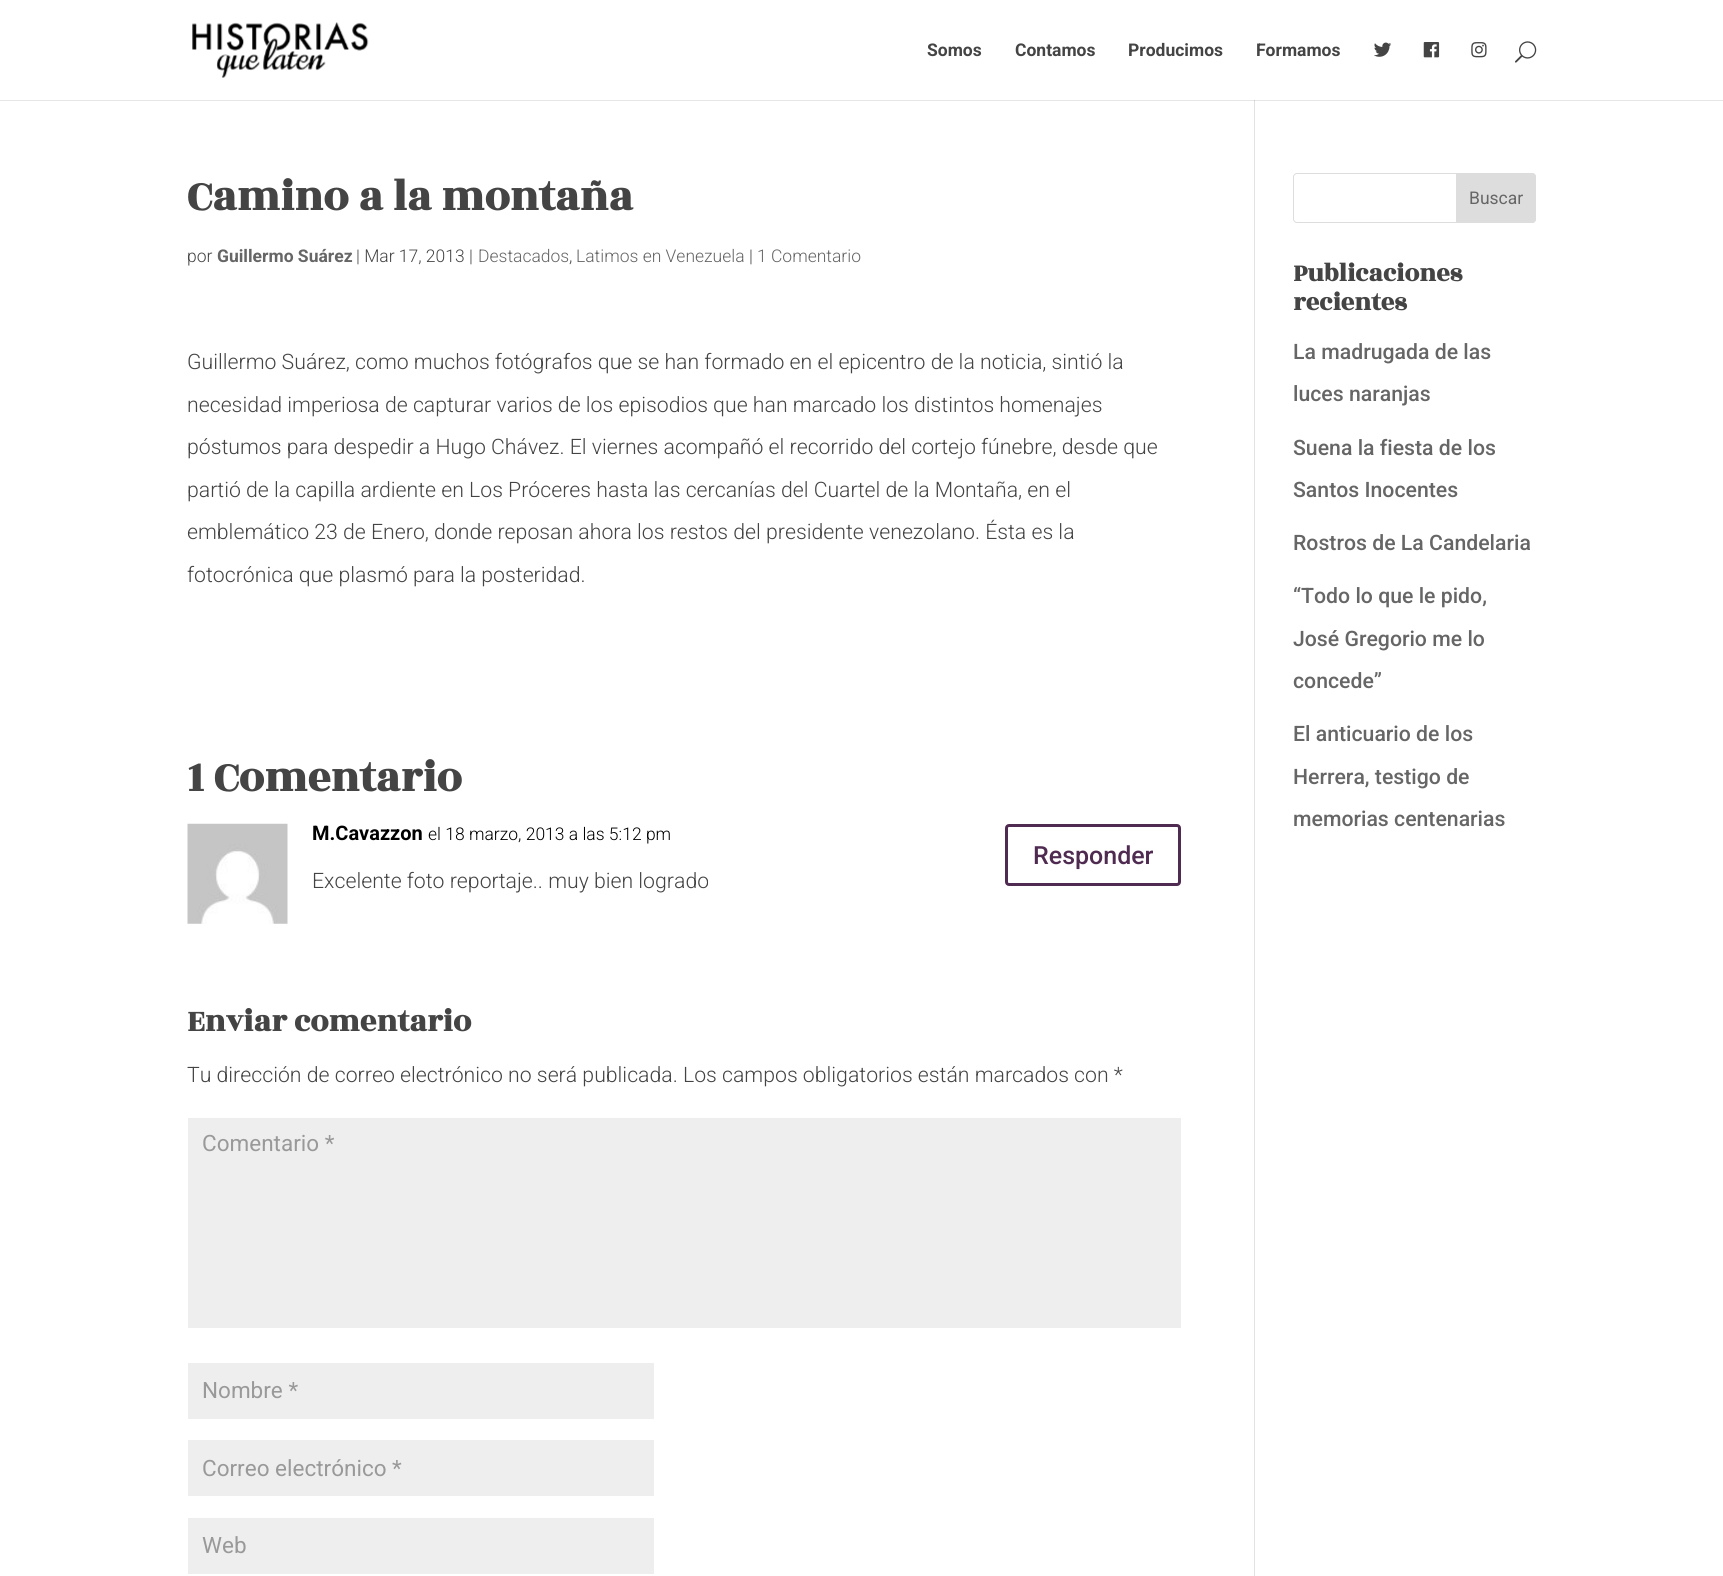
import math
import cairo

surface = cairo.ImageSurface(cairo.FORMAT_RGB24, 1723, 1576)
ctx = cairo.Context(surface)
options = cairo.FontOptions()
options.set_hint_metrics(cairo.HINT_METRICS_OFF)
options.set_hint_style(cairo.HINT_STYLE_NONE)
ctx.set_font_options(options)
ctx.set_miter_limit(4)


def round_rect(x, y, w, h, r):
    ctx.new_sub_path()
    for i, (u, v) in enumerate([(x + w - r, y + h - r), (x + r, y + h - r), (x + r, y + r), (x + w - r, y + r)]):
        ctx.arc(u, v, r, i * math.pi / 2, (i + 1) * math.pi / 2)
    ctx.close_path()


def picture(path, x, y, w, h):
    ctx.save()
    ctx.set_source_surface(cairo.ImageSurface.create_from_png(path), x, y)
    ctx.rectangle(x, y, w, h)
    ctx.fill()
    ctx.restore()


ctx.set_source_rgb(1, 1, 1)
ctx.paint()
ctx.set_source_rgb(0.886, 0.886, 0.886)
ctx.rectangle(1254, 100, 1, 1476)
ctx.fill()
ctx.set_source_rgba(0, 0, 0, 0.1)
ctx.new_path()
ctx.move_to(0, 100)
ctx.line_to(0, 101)
ctx.line_to(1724, 101)
ctx.line_to(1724, 1)
ctx.line_to(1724, 100)
ctx.close_path()
ctx.fill()
picture("img1.png", 192, 22, 177, 56)
ctx.select_font_face("Roboto", cairo.FONT_SLANT_NORMAL, cairo.FONT_WEIGHT_BOLD)
ctx.set_font_size(17.5)
ctx.set_source_rgb(0.267, 0.267, 0.267)
ctx.move_to(927, 56)
ctx.show_text("Somos")
ctx.move_to(1015, 56)
ctx.show_text("Contamos")
ctx.move_to(1128, 56)
ctx.show_text("Producimos")
ctx.move_to(1256, 56)
ctx.show_text("Formamos")
picture("img2.png", 1374, 42, 18, 15)
picture("img3.png", 1423, 42, 17, 16)
picture("img4.png", 1471, 42, 16, 16)
picture("img5.png", 1515, 41, 22, 22)
ctx.select_font_face("Rozha One", cairo.FONT_SLANT_NORMAL, cairo.FONT_WEIGHT_BOLD)
ctx.set_font_size(45)
ctx.move_to(187, 210)
ctx.show_text("Camino a la montaña")
ctx.select_font_face("Roboto Light")
ctx.set_font_size(17.5)
ctx.move_to(187, 262)
ctx.show_text("por")
ctx.select_font_face("Roboto", cairo.FONT_SLANT_NORMAL, cairo.FONT_WEIGHT_BOLD)
ctx.set_source_rgb(0.4, 0.4, 0.4)
ctx.move_to(217, 262)
ctx.show_text("Guillermo Suárez")
ctx.select_font_face("Roboto Light")
ctx.set_source_rgb(0.267, 0.267, 0.267)
ctx.move_to(356, 262)
ctx.show_text("| Mar 17, 2013 |")
ctx.set_source_rgb(0.4, 0.4, 0.4)
ctx.move_to(478, 262)
ctx.show_text("Destacados")
ctx.set_source_rgb(0.267, 0.267, 0.267)
ctx.move_to(569, 262)
ctx.show_text(",")
ctx.set_source_rgb(0.4, 0.4, 0.4)
ctx.move_to(576, 262)
ctx.show_text("Latimos en Venezuela")
ctx.set_source_rgb(0.267, 0.267, 0.267)
ctx.move_to(749, 262)
ctx.show_text("|")
ctx.set_source_rgb(0.4, 0.4, 0.4)
ctx.move_to(757, 262)
ctx.show_text("1 Comentario")
ctx.set_font_size(21.25)
ctx.set_source_rgb(0.267, 0.267, 0.267)
ctx.move_to(187, 369)
ctx.show_text("Guillermo Suárez, como muchos fotógrafos que se han formado en el epicentro de la noticia, sintió la")
ctx.move_to(187, 412)
ctx.show_text("necesidad imperiosa de capturar varios de los episodios que han marcado los distintos homenajes")
ctx.move_to(187, 454)
ctx.show_text("póstumos para despedir a Hugo Chávez. El viernes acompañó el recorrido del cortejo fúnebre, desde que")
ctx.move_to(187, 497)
ctx.show_text("partió de la capilla ardiente en Los Próceres hasta las cercanías del Cuartel de la Montaña, en el")
ctx.move_to(187, 539)
ctx.show_text("emblemático 23 de Enero, donde reposan ahora los restos del presidente venezolano. Ésta es la")
ctx.move_to(187, 582)
ctx.show_text("fotocrónica que plasmó para la posteridad.")
ctx.select_font_face("Rozha One", cairo.FONT_SLANT_NORMAL, cairo.FONT_WEIGHT_BOLD)
ctx.set_font_size(45)
ctx.move_to(187, 791)
ctx.show_text("1 Comentario")
picture("img6.png", 187, 823, 101, 101)
ctx.select_font_face("Roboto", cairo.FONT_SLANT_NORMAL, cairo.FONT_WEIGHT_BOLD)
ctx.set_font_size(20)
ctx.set_source_rgb(0, 0, 0)
ctx.move_to(312, 840)
ctx.show_text("M.Cavazzon")
ctx.select_font_face("Roboto Light")
ctx.set_font_size(17.5)
ctx.move_to(428, 840)
ctx.show_text("el 18 marzo, 2013 a las 5:12 pm")
round_rect(1006.5, 825.5, 173, 59, 2.5)
ctx.set_source_rgb(0.31, 0.165, 0.318)
ctx.set_line_width(3)
ctx.stroke()
ctx.select_font_face("Roboto Medium")
ctx.set_font_size(25)
ctx.move_to(1033, 864)
ctx.show_text("Responder")
ctx.select_font_face("Roboto Light")
ctx.set_font_size(21.25)
ctx.set_source_rgb(0.267, 0.267, 0.267)
ctx.move_to(312, 888)
ctx.show_text("Excelente foto reportaje.. muy bien logrado")
ctx.select_font_face("Rozha One", cairo.FONT_SLANT_NORMAL, cairo.FONT_WEIGHT_BOLD)
ctx.set_font_size(32.5)
ctx.move_to(187, 1031)
ctx.show_text("Enviar comentario")
ctx.select_font_face("Roboto Light")
ctx.set_font_size(21.25)
ctx.move_to(187, 1082)
ctx.show_text("Tu dirección de correo electrónico no será publicada. Los campos obligatorios están marcados con *")
ctx.set_source_rgb(0.933, 0.933, 0.933)
ctx.rectangle(188, 1118, 993, 210)
ctx.fill()
ctx.select_font_face("Roboto")
ctx.set_font_size(22.5)
ctx.set_source_rgb(0.6, 0.6, 0.6)
ctx.move_to(202, 1151)
ctx.show_text("Comentario *")
ctx.set_source_rgb(0.933, 0.933, 0.933)
ctx.rectangle(188, 1363, 466, 56)
ctx.fill()
ctx.set_source_rgb(0.6, 0.6, 0.6)
ctx.move_to(202, 1398)
ctx.show_text("Nombre *")
ctx.set_source_rgb(0.933, 0.933, 0.933)
ctx.rectangle(188, 1440, 466, 56)
ctx.fill()
ctx.set_source_rgb(0.6, 0.6, 0.6)
ctx.move_to(202, 1476)
ctx.show_text("Correo electrónico *")
ctx.set_source_rgb(0.933, 0.933, 0.933)
ctx.rectangle(188, 1518, 466, 56)
ctx.fill()
ctx.set_source_rgb(0.6, 0.6, 0.6)
ctx.move_to(202, 1553)
ctx.show_text("Web")
round_rect(1293.5, 173.5, 242, 49, 3.5)
ctx.set_source_rgb(0.867, 0.867, 0.867)
ctx.set_line_width(1)
ctx.stroke()
ctx.new_path()
ctx.move_to(1456.5, 173.5)
ctx.line_to(1532, 173.5)
ctx.curve_to(1534, 173.5, 1535.5, 175, 1535.5, 177)
ctx.line_to(1535.5, 219)
ctx.curve_to(1535.5, 221, 1534, 222.5, 1532, 222.5)
ctx.line_to(1456.5, 222.5)
ctx.close_path()
ctx.fill_preserve()
ctx.stroke()
ctx.set_font_size(17.5)
ctx.set_source_rgb(0.4, 0.4, 0.4)
ctx.move_to(1469, 204)
ctx.show_text("Buscar")
ctx.select_font_face("Rozha One", cairo.FONT_SLANT_NORMAL, cairo.FONT_WEIGHT_BOLD)
ctx.set_font_size(26.25)
ctx.set_source_rgb(0.267, 0.267, 0.267)
ctx.move_to(1293, 281)
ctx.show_text("Publicaciones")
ctx.move_to(1293, 310)
ctx.show_text("recientes")
ctx.select_font_face("Roboto Medium")
ctx.set_font_size(21.25)
ctx.set_source_rgb(0.4, 0.4, 0.4)
ctx.move_to(1293, 359)
ctx.show_text("La madrugada de las")
ctx.move_to(1293, 401)
ctx.show_text("luces naranjas")
ctx.move_to(1293, 455)
ctx.show_text("Suena la fiesta de los")
ctx.move_to(1293, 497)
ctx.show_text("Santos Inocentes")
ctx.move_to(1293, 550)
ctx.show_text("Rostros de La Candelaria")
ctx.move_to(1293, 603)
ctx.show_text("“Todo lo que le pido,")
ctx.move_to(1293, 646)
ctx.show_text("José Gregorio me lo")
ctx.move_to(1293, 688)
ctx.show_text("concede”")
ctx.move_to(1293, 741)
ctx.show_text("El anticuario de los")
ctx.move_to(1293, 784)
ctx.show_text("Herrera, testigo de")
ctx.move_to(1293, 826)
ctx.show_text("memorias centenarias")
surface.write_to_png("page.png")
